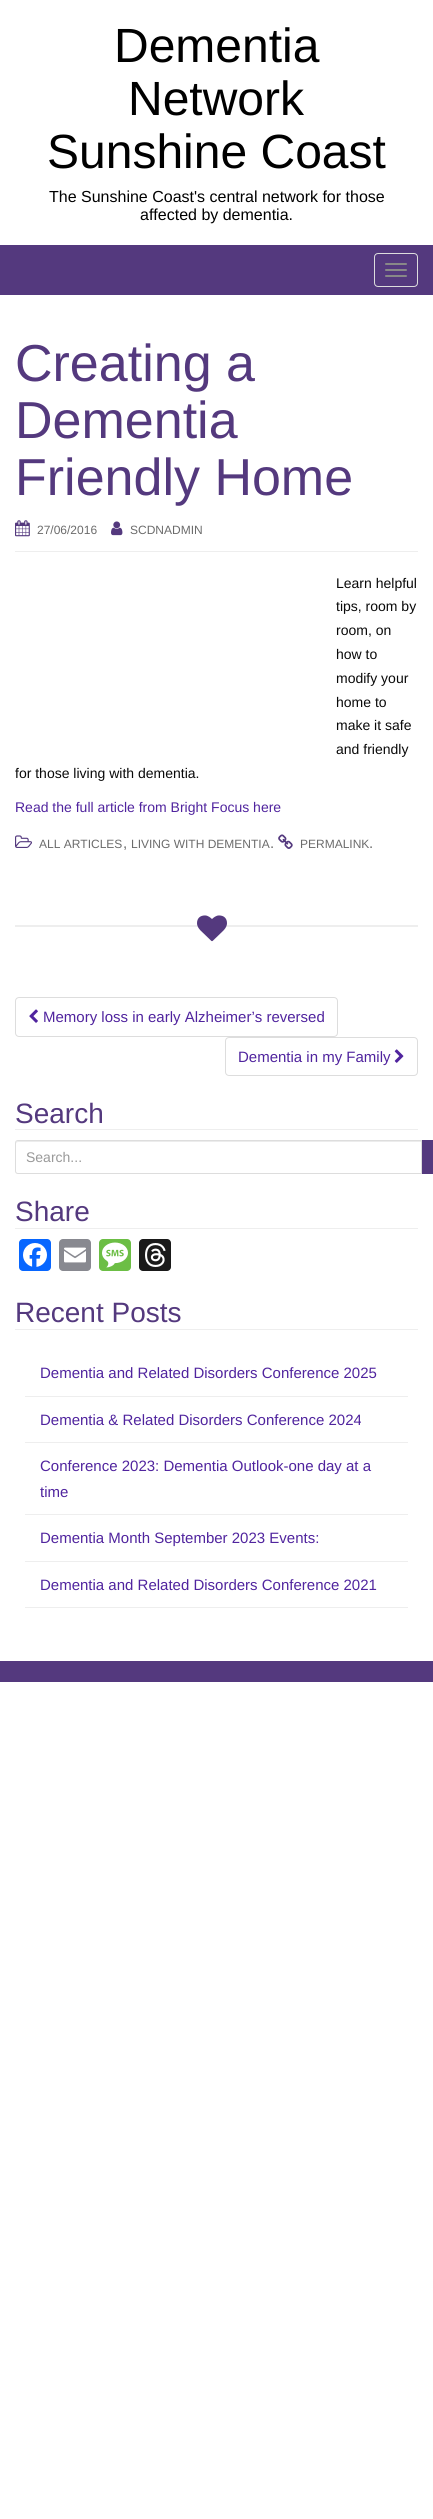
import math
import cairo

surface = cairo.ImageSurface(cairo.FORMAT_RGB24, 433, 2519)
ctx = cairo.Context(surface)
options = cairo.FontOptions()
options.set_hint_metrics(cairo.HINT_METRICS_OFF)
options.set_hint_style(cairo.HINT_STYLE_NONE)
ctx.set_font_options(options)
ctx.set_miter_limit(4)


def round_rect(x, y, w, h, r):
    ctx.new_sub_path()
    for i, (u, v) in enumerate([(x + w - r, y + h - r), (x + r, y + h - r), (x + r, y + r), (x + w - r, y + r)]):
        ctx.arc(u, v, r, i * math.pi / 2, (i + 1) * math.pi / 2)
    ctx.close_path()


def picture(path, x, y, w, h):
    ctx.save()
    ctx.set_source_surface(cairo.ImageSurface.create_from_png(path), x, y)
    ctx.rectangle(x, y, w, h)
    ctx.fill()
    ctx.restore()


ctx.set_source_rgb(1, 1, 1)
ctx.paint()
ctx.select_font_face("Liberation Sans")
ctx.set_font_size(48)
ctx.set_source_rgb(0, 0, 0)
ctx.move_to(114, 62)
ctx.show_text("Dementia")
ctx.move_to(128, 115)
ctx.show_text("Network")
ctx.move_to(47, 168)
ctx.show_text("Sunshine Coast")
ctx.set_font_size(16)
ctx.move_to(49, 202)
ctx.show_text("The Sunshine Coast's central network for those")
ctx.move_to(140, 220)
ctx.show_text("affected by dementia.")
ctx.set_source_rgb(0.329, 0.224, 0.494)
ctx.rectangle(0, 245, 433, 50)
ctx.fill()
round_rect(374.5, 253.5, 43, 33, 3.5)
ctx.set_source_rgb(0.867, 0.867, 0.867)
ctx.set_line_width(1)
ctx.stroke()
ctx.set_source_rgb(0.533, 0.533, 0.533)
round_rect(385, 263, 22, 2, 1)
ctx.fill()
round_rect(385, 269, 22, 2, 1)
ctx.fill()
round_rect(385, 275, 22, 2, 1)
ctx.fill()
ctx.set_source_rgb(0.933, 0.933, 0.933)
ctx.rectangle(15, 551, 403, 1)
ctx.fill()
ctx.set_font_size(52)
ctx.set_source_rgb(0.329, 0.224, 0.494)
ctx.move_to(15, 381)
ctx.show_text("Creating a")
ctx.move_to(15, 438)
ctx.show_text("Dementia")
ctx.move_to(15, 495)
ctx.show_text("Friendly Home")
picture("img1.png", 15, 520, 15, 17)
ctx.set_font_size(12)
ctx.set_source_rgb(0.42, 0.42, 0.42)
ctx.move_to(37, 534)
ctx.show_text("27/06/2016")
picture("img2.png", 111, 521, 12, 15)
ctx.move_to(130, 534)
ctx.show_text("SCDNADMIN")
ctx.set_font_size(14)
ctx.set_source_rgb(0.039, 0.039, 0.039)
ctx.move_to(336, 588)
ctx.show_text("Learn helpful")
ctx.move_to(336, 611)
ctx.show_text("tips, room by")
ctx.move_to(336, 635)
ctx.show_text("room, on")
ctx.move_to(336, 659)
ctx.show_text("how to")
ctx.move_to(336, 683)
ctx.show_text("modify your")
ctx.move_to(336, 707)
ctx.show_text("home to")
ctx.move_to(336, 730)
ctx.show_text("make it safe")
ctx.move_to(336, 754)
ctx.show_text("and friendly")
ctx.move_to(15, 778)
ctx.show_text("for those living with dementia.")
ctx.set_source_rgb(0.314, 0.141, 0.62)
ctx.move_to(15, 812)
ctx.show_text("Read the full article from Bright Focus here")
picture("img3.png", 15, 835, 17, 13)
ctx.set_font_size(12)
ctx.set_source_rgb(0.42, 0.42, 0.42)
ctx.move_to(39, 848)
ctx.show_text("ALL ARTICLES")
ctx.set_font_size(15)
ctx.move_to(123, 848)
ctx.show_text(",")
ctx.set_font_size(12)
ctx.move_to(131, 848)
ctx.show_text("LIVING WITH DEMENTIA")
ctx.set_font_size(15)
ctx.move_to(270, 848)
ctx.show_text(".")
picture("img4.png", 278, 834, 15, 15)
ctx.set_font_size(12)
ctx.move_to(300, 848)
ctx.show_text("PERMALINK")
ctx.set_font_size(15)
ctx.move_to(369, 848)
ctx.show_text(".")
ctx.set_source_rgb(0.933, 0.933, 0.933)
ctx.rectangle(15, 925, 403, 2)
ctx.fill()
picture("img5.png", 197, 915, 30, 27)
round_rect(15.5, 997.5, 322, 39, 3.5)
ctx.set_source_rgb(0.867, 0.867, 0.867)
ctx.stroke()
picture("img6.png", 29, 1009, 9, 14)
ctx.set_source_rgb(0.314, 0.141, 0.62)
ctx.move_to(43, 1022)
ctx.show_text("Memory loss in early Alzheimer’s reversed")
round_rect(225.5, 1037.5, 192, 38, 3.5)
ctx.set_source_rgb(0.867, 0.867, 0.867)
ctx.stroke()
ctx.set_source_rgb(0.314, 0.141, 0.62)
ctx.move_to(238, 1062)
ctx.show_text("Dementia in my Family")
picture("img7.png", 394, 1049, 10, 14)
ctx.set_source_rgb(0.933, 0.933, 0.933)
ctx.rectangle(15, 1129, 403, 1)
ctx.fill()
ctx.set_font_size(28)
ctx.set_source_rgb(0.329, 0.224, 0.494)
ctx.move_to(15, 1123)
ctx.show_text("Search")
ctx.set_source_rgb(0.925, 0.925, 0.925)
ctx.new_path()
ctx.move_to(18, 1142)
ctx.line_to(421, 1142)
ctx.line_to(421, 1141)
ctx.line_to(18, 1141)
ctx.curve_to(16, 1141, 16, 1143, 16, 1144)
ctx.curve_to(16, 1143, 17, 1142, 18, 1142)
ctx.close_path()
ctx.fill()
ctx.new_path()
ctx.move_to(18, 1140.5)
ctx.line_to(421.5, 1140.5)
ctx.line_to(421.5, 1173.5)
ctx.line_to(18, 1173.5)
ctx.curve_to(16.5, 1173.5, 15.5, 1172.5, 15.5, 1171)
ctx.line_to(15.5, 1143)
ctx.curve_to(15.5, 1141.5, 16.5, 1140.5, 18, 1140.5)
ctx.close_path()
ctx.set_source_rgb(0.867, 0.867, 0.867)
ctx.stroke()
ctx.set_font_size(14)
ctx.set_source_rgb(0.6, 0.6, 0.6)
ctx.move_to(26, 1162)
ctx.show_text("Search...")
ctx.set_source_rgb(0.329, 0.224, 0.494)
ctx.rectangle(422, 1140, 11, 34)
ctx.fill()
ctx.set_source_rgb(0.933, 0.933, 0.933)
ctx.rectangle(15, 1228, 403, 1)
ctx.fill()
ctx.set_font_size(28)
ctx.set_source_rgb(0.329, 0.224, 0.494)
ctx.move_to(15, 1221)
ctx.show_text("Share")
ctx.set_source_rgb(0.031, 0.4, 1)
round_rect(19, 1239, 32, 32, 4)
ctx.fill()
picture("img8.png", 23, 1243, 24, 24)
ctx.set_source_rgb(0.533, 0.537, 0.565)
round_rect(59, 1239, 32, 32, 4)
ctx.fill()
picture("img9.png", 64, 1247, 22, 16)
ctx.set_source_rgb(0.424, 0.745, 0.271)
round_rect(99, 1239, 32, 32, 4)
ctx.fill()
picture("img10.png", 102, 1242, 26, 26)
ctx.set_source_rgb(0.102, 0.102, 0.102)
round_rect(139, 1239, 32, 32, 4)
ctx.fill()
picture("img11.png", 145, 1243, 21, 24)
ctx.set_source_rgb(0.933, 0.933, 0.933)
ctx.rectangle(15, 1329, 403, 1)
ctx.fill()
ctx.set_source_rgb(0.329, 0.224, 0.494)
ctx.move_to(15, 1322)
ctx.show_text("Recent Posts")
ctx.set_source_rgb(0.933, 0.933, 0.933)
ctx.rectangle(25, 1396, 383, 1)
ctx.fill()
ctx.set_font_size(15)
ctx.set_source_rgb(0.314, 0.141, 0.62)
ctx.move_to(40, 1378)
ctx.show_text("Dementia and Related Disorders Conference 2025")
ctx.set_source_rgb(0.933, 0.933, 0.933)
ctx.rectangle(25, 1442, 383, 1)
ctx.fill()
ctx.set_source_rgb(0.314, 0.141, 0.62)
ctx.move_to(40, 1425)
ctx.show_text("Dementia & Related Disorders Conference 2024")
ctx.set_source_rgb(0.933, 0.933, 0.933)
ctx.rectangle(25, 1514, 383, 1)
ctx.fill()
ctx.set_source_rgb(0.314, 0.141, 0.62)
ctx.move_to(40, 1471)
ctx.show_text("Conference 2023: Dementia Outlook-one day at a")
ctx.move_to(40, 1497)
ctx.show_text("time")
ctx.set_source_rgb(0.933, 0.933, 0.933)
ctx.rectangle(25, 1561, 383, 1)
ctx.fill()
ctx.set_source_rgb(0.314, 0.141, 0.62)
ctx.move_to(40, 1543)
ctx.show_text("Dementia Month September 2023 Events:")
ctx.set_source_rgb(0.933, 0.933, 0.933)
ctx.rectangle(25, 1607, 383, 1)
ctx.fill()
ctx.set_source_rgb(0.314, 0.141, 0.62)
ctx.move_to(40, 1590)
ctx.show_text("Dementia and Related Disorders Conference 2021")
ctx.set_source_rgb(0.329, 0.224, 0.494)
ctx.rectangle(0, 1661, 433, 21)
ctx.fill()
surface.write_to_png("page.png")
